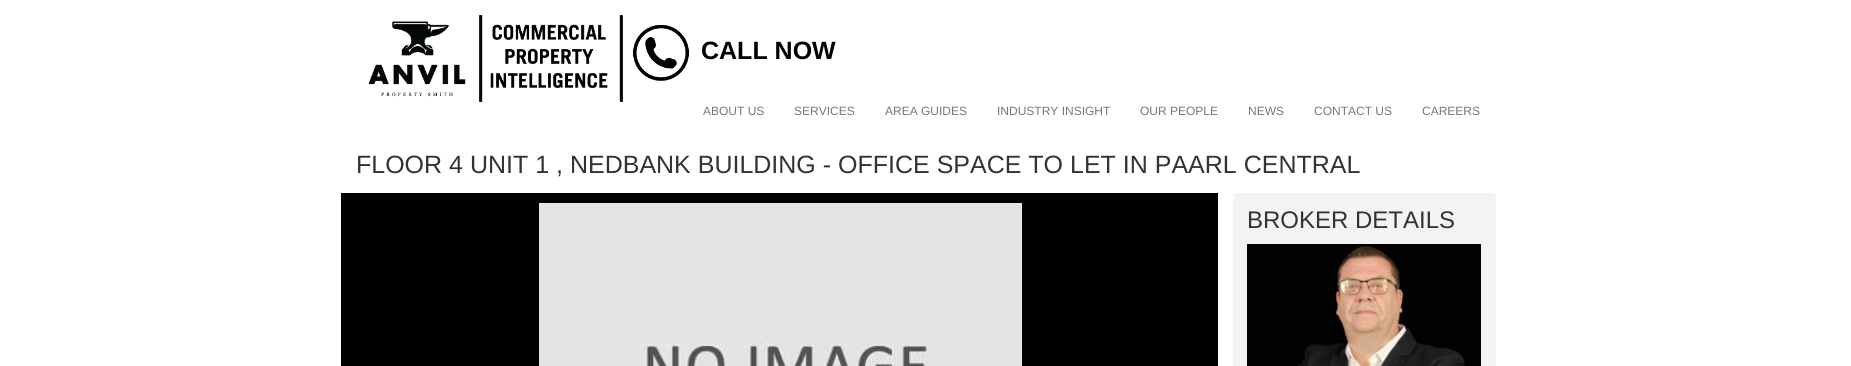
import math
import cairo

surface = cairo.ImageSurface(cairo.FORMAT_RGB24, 1851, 366)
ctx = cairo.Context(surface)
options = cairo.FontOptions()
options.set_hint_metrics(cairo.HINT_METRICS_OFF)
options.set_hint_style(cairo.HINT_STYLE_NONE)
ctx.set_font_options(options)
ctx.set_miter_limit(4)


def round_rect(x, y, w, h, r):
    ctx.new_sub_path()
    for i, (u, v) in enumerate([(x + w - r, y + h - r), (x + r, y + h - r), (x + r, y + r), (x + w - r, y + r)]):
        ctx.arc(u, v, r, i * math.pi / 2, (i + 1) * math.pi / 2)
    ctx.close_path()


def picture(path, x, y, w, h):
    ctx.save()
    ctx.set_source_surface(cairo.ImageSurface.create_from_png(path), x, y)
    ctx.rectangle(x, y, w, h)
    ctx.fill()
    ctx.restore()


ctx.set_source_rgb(1, 1, 1)
ctx.paint()
picture("img1.png", 368, 15, 255, 87)
picture("img2.png", 632, 25, 58, 56)
ctx.select_font_face("Liberation Sans", cairo.FONT_SLANT_NORMAL, cairo.FONT_WEIGHT_BOLD)
ctx.set_font_size(25)
ctx.set_source_rgb(0, 0, 0)
ctx.move_to(701, 59)
ctx.show_text("CALL NOW")
ctx.select_font_face("Liberation Sans")
ctx.set_font_size(12)
ctx.set_source_rgb(0.467, 0.467, 0.467)
ctx.move_to(703, 115)
ctx.show_text("ABOUT US")
ctx.move_to(794, 115)
ctx.show_text("SERVICES")
ctx.move_to(885, 115)
ctx.show_text("AREA GUIDES")
ctx.move_to(997, 115)
ctx.show_text("INDUSTRY INSIGHT")
ctx.move_to(1140, 115)
ctx.show_text("OUR PEOPLE")
ctx.move_to(1248, 115)
ctx.show_text("NEWS")
ctx.move_to(1314, 115)
ctx.show_text("CONTACT US")
ctx.move_to(1422, 115)
ctx.show_text("CAREERS")
ctx.set_font_size(25)
ctx.set_source_rgb(0.2, 0.2, 0.2)
ctx.move_to(356, 173)
ctx.show_text("FLOOR 4 UNIT 1 , NEDBANK BUILDING - OFFICE SPACE TO LET IN PAARL CENTRAL")
ctx.set_source_rgb(0, 0, 0)
ctx.rectangle(341, 193, 877, 173)
ctx.fill()
picture("img3.png", 539, 203, 483, 163)
ctx.set_source_rgb(0.953, 0.953, 0.953)
round_rect(1233, 193, 263, 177, 4)
ctx.fill()
ctx.set_font_size(24)
ctx.set_source_rgb(0.2, 0.2, 0.2)
ctx.move_to(1247, 228)
ctx.show_text("BROKER DETAILS")
picture("img4.png", 1247, 244, 234, 122)
surface.write_to_png("page.png")
